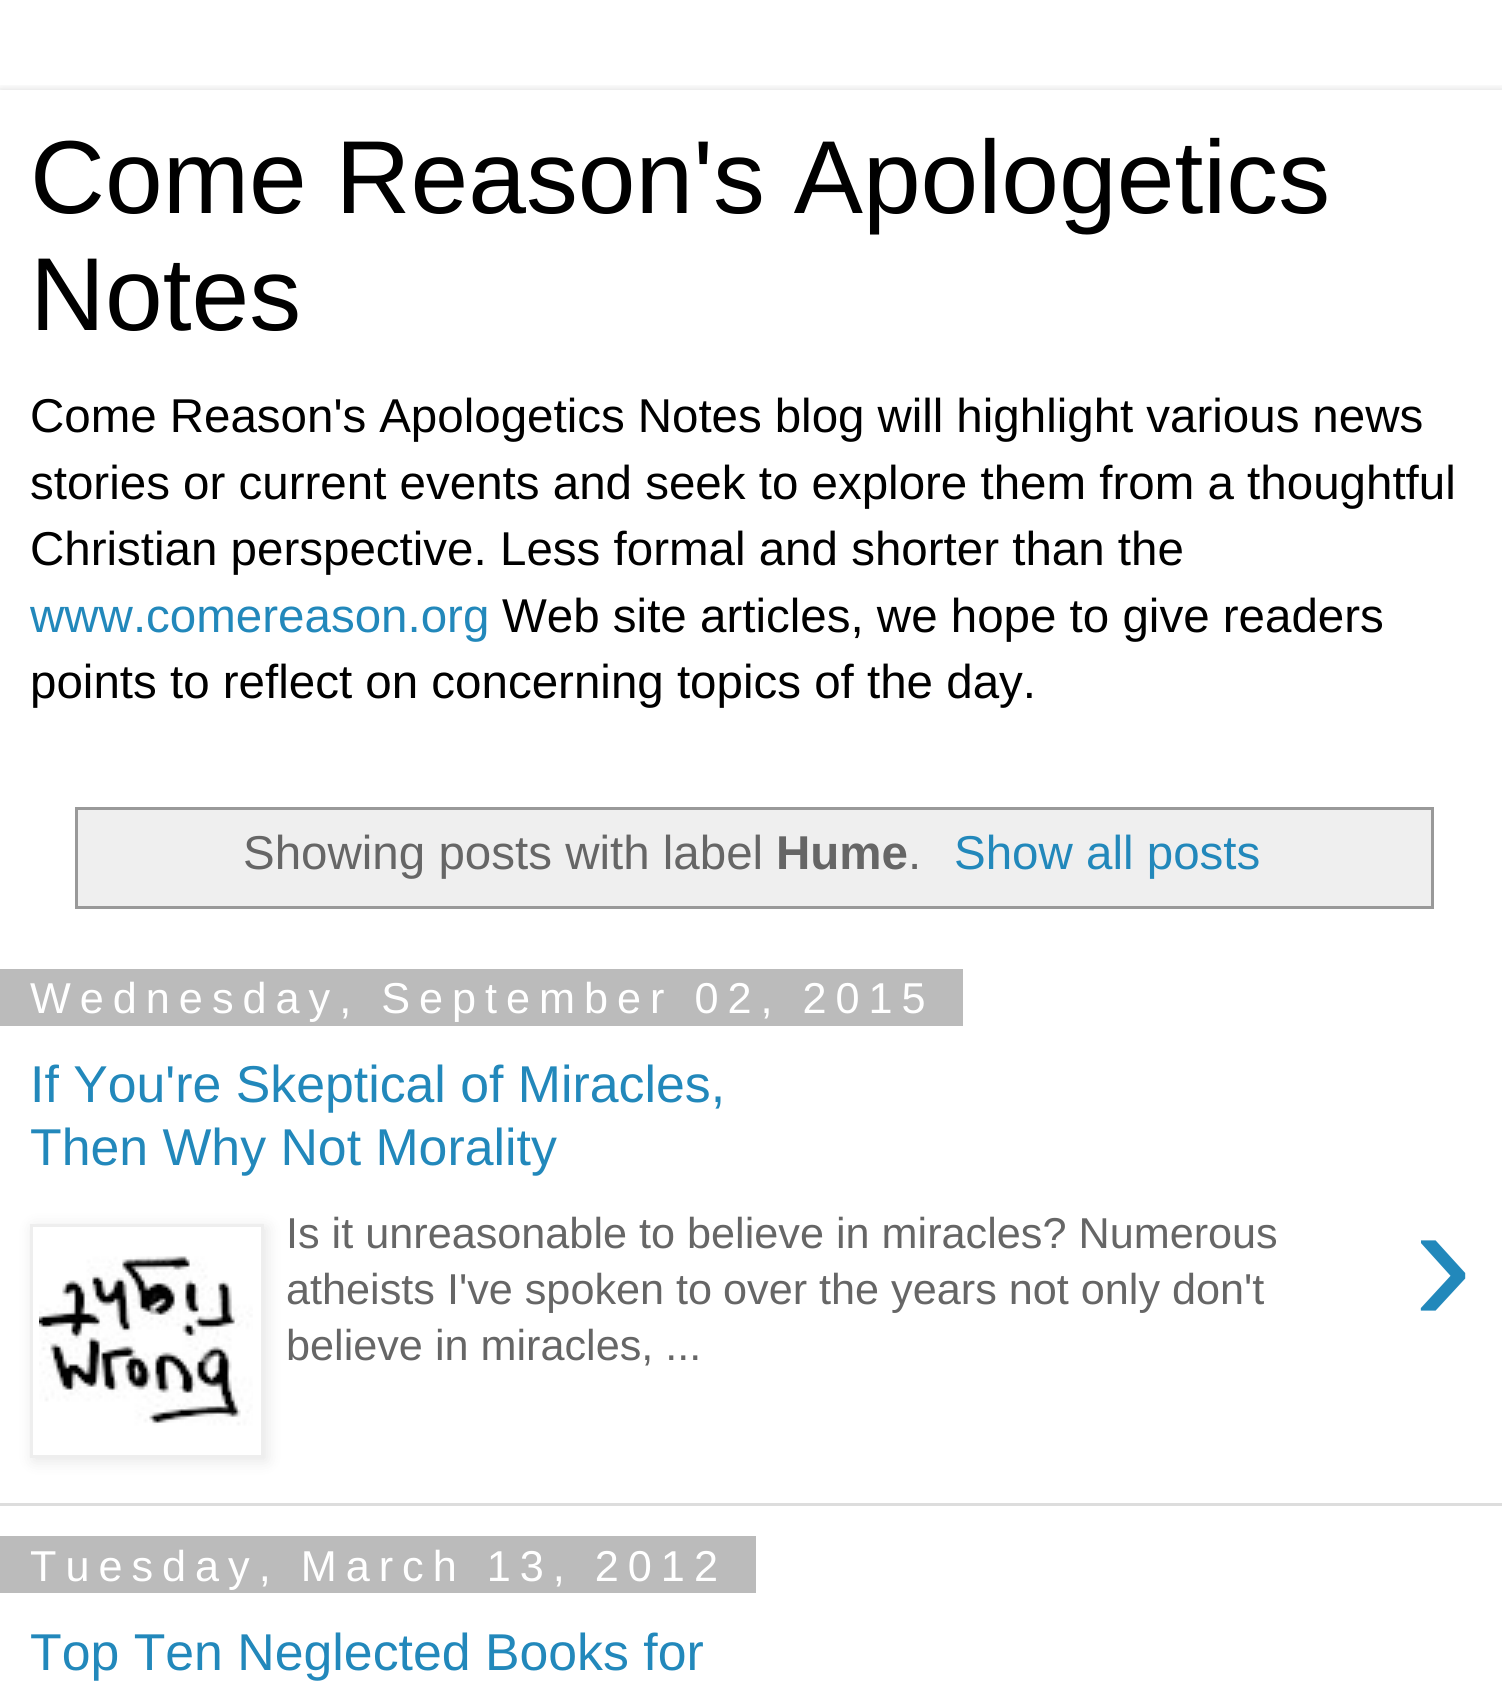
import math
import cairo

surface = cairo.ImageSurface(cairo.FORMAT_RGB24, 1502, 1688)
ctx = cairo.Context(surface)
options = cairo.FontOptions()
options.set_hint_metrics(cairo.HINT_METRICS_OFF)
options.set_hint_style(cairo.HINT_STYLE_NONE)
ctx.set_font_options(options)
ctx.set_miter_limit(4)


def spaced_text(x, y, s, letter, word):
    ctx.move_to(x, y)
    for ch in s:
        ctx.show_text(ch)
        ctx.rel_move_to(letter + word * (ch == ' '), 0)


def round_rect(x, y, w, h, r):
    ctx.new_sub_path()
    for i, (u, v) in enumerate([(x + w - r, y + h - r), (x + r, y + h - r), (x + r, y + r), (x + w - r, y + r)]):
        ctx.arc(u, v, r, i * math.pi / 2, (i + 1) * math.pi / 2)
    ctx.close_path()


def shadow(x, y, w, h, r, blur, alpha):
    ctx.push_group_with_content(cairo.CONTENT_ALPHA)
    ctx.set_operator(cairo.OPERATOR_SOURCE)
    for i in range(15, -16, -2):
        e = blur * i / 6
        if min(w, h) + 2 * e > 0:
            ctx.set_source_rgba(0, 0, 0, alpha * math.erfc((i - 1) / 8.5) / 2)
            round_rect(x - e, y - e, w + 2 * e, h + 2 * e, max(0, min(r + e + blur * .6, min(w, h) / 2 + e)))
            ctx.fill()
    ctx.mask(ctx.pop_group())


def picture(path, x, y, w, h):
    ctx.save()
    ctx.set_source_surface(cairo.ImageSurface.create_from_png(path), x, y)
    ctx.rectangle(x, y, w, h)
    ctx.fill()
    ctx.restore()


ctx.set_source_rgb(1, 1, 1)
ctx.paint()
ctx.save()
ctx.rectangle(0, 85, 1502, 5)
ctx.clip()
ctx.set_source_rgb(0, 0, 0)
shadow(0, 90, 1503, 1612, 0, 4.5, 0.15)
ctx.restore()
ctx.select_font_face("Liberation Sans")
ctx.set_font_size(103.75)
ctx.set_source_rgb(0, 0, 0)
ctx.move_to(30, 213)
ctx.show_text("Come Reason's Apologetics")
ctx.move_to(30, 330)
ctx.show_text("Notes")
ctx.set_font_size(47.5)
spaced_text(30, 432, "Come Reason's Apologetics Notes blog will highlight various news", 0, -0.25)
ctx.move_to(30, 499)
ctx.show_text("stories or current events and seek to explore them from a thoughtful")
ctx.move_to(30, 565)
ctx.show_text("Christian perspective.")
ctx.move_to(500, 565)
ctx.show_text("Less formal and shorter than the")
ctx.set_source_rgb(0.133, 0.533, 0.733)
ctx.move_to(30, 632)
ctx.show_text("www.comereason.org")
ctx.set_source_rgb(0, 0, 0)
ctx.move_to(502, 632)
ctx.show_text("Web site articles, we hope to give readers")
ctx.move_to(30, 698)
ctx.show_text("points to reflect on concerning topics of the day.")
ctx.rectangle(76.5, 808.5, 1356, 99)
ctx.set_source_rgb(0.6, 0.6, 0.6)
ctx.set_line_width(3)
ctx.stroke()
ctx.set_source_rgb(0.937, 0.937, 0.937)
ctx.rectangle(78, 810, 1353, 96)
ctx.fill()
ctx.set_source_rgb(0.4, 0.4, 0.4)
ctx.move_to(243, 869)
ctx.show_text("Showing posts with label")
ctx.select_font_face("Liberation Sans", cairo.FONT_SLANT_NORMAL, cairo.FONT_WEIGHT_BOLD)
ctx.move_to(776, 869)
ctx.show_text("Hume")
ctx.select_font_face("Liberation Sans")
ctx.move_to(908, 869)
ctx.show_text(".")
ctx.set_source_rgb(0.133, 0.533, 0.733)
ctx.move_to(954, 869)
ctx.show_text("Show all posts")
ctx.set_source_rgb(0.867, 0.867, 0.867)
ctx.rectangle(0, 1503, 1502, 3)
ctx.fill()
ctx.set_source_rgb(0.733, 0.733, 0.733)
ctx.rectangle(0, 969, 963, 57)
ctx.fill()
ctx.set_font_size(43.2)
ctx.set_source_rgb(1, 1, 1)
spaced_text(30, 1013, "Wednesday, September 02, 2015", 9, 0)
ctx.set_font_size(51.8)
ctx.set_source_rgb(0.133, 0.533, 0.733)
ctx.move_to(30, 1102)
ctx.show_text("If You're Skeptical of Miracles,")
ctx.move_to(30, 1165)
ctx.show_text("Then Why Not Morality")
ctx.save()
ctx.set_fill_rule(cairo.FILL_RULE_EVEN_ODD)
ctx.new_path()
ctx.move_to(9, 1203)
ctx.line_to(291, 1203)
ctx.line_to(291, 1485)
ctx.line_to(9, 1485)
ctx.close_path()
ctx.move_to(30, 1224)
ctx.line_to(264, 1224)
ctx.line_to(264, 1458)
ctx.line_to(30, 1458)
ctx.close_path()
ctx.clip()
ctx.set_source_rgb(0, 0, 0)
shadow(33, 1227, 234, 234, 0, 7.5, 0.1)
ctx.restore()
ctx.rectangle(31.5, 1225.5, 231, 231)
ctx.set_source_rgb(0.933, 0.933, 0.933)
ctx.stroke()
picture("img1.png", 39, 1256, 214, 170)
ctx.set_font_size(43.2)
ctx.set_source_rgb(0.4, 0.4, 0.4)
ctx.move_to(286, 1248)
ctx.show_text("Is it unreasonable to believe in miracles? Numerous")
ctx.move_to(286, 1304)
ctx.show_text("atheists I've spoken to")
ctx.move_to(723, 1304)
ctx.show_text("over the years not only don't")
ctx.move_to(286, 1360)
ctx.show_text("believe in miracles, ...")
ctx.set_font_size(180)
ctx.set_source_rgb(0.133, 0.533, 0.733)
ctx.move_to(1413, 1323)
ctx.show_text("›")
ctx.set_source_rgb(0.733, 0.733, 0.733)
ctx.rectangle(0, 1536, 756, 57)
ctx.fill()
ctx.set_font_size(43.2)
ctx.set_source_rgb(1, 1, 1)
spaced_text(30, 1581, "Tuesday, March 13, 2012", 9, 0)
ctx.set_font_size(51.8)
ctx.set_source_rgb(0.133, 0.533, 0.733)
ctx.move_to(30, 1670)
ctx.show_text("Top Ten Neglected Books for")
surface.write_to_png("page.png")
